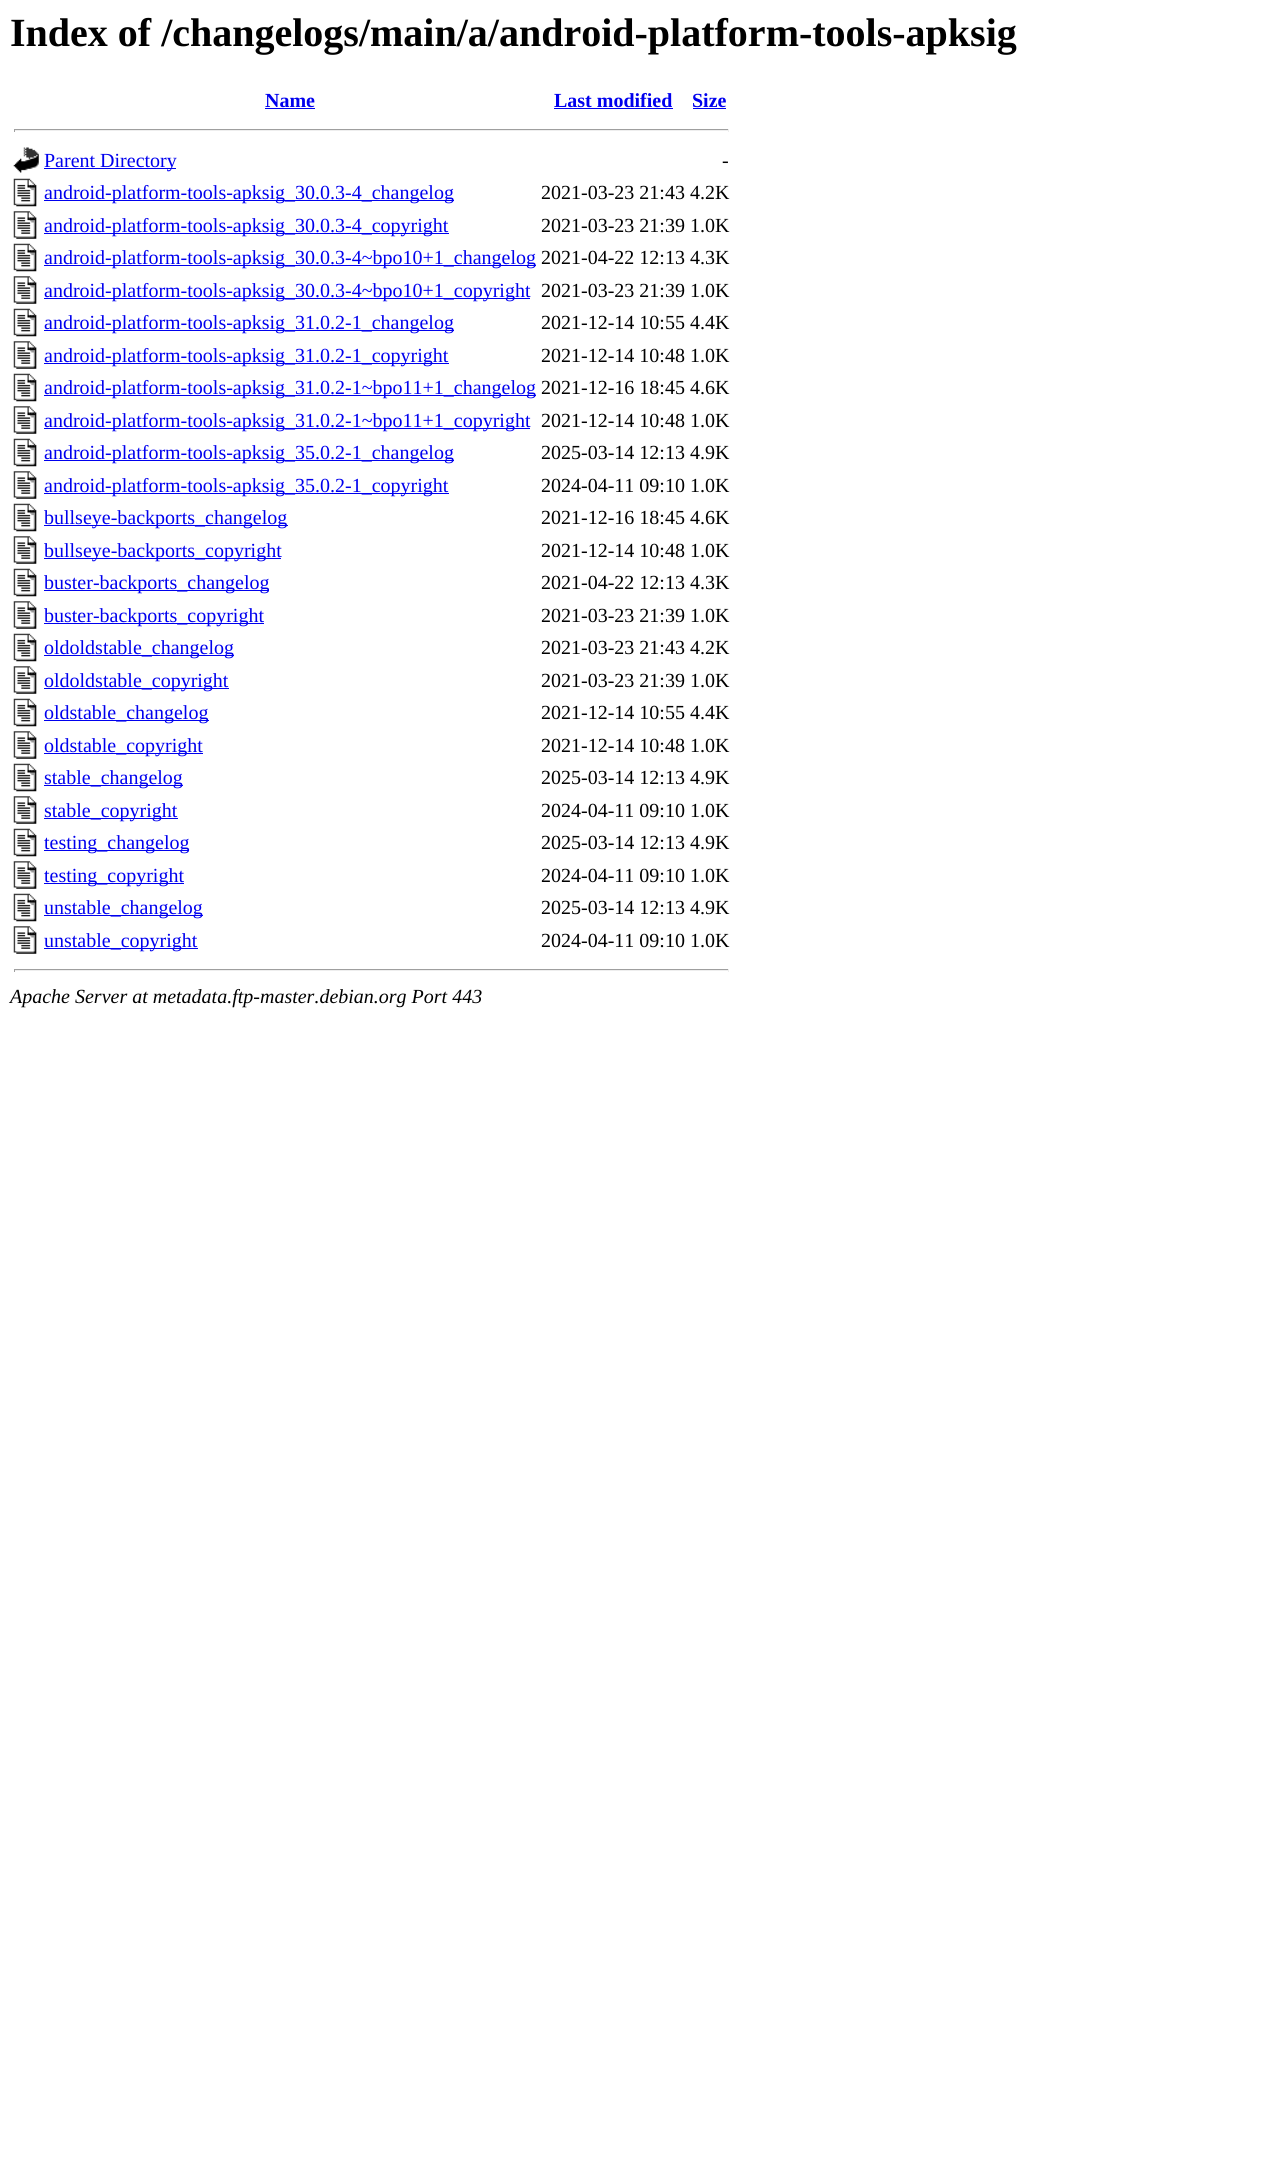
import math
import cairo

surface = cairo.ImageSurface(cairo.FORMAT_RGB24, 1287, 2160)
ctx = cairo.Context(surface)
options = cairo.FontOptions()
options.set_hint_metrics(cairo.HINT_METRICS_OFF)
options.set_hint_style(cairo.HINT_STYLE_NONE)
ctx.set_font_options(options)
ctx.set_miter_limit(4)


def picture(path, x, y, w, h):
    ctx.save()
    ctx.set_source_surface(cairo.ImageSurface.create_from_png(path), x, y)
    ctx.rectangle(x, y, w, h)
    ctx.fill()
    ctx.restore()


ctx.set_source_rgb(1, 1, 1)
ctx.paint()
ctx.select_font_face("Liberation Serif", cairo.FONT_SLANT_NORMAL, cairo.FONT_WEIGHT_BOLD)
ctx.set_font_size(40)
ctx.set_source_rgb(0, 0, 0)
ctx.move_to(10, 46)
ctx.show_text("Index of /changelogs/main/a/android-platform-tools-apksig")
ctx.set_font_size(20)
ctx.set_source_rgb(0, 0, 0.933)
ctx.move_to(265, 107)
ctx.show_text("Name")
ctx.rectangle(265, 108, 50, 1)
ctx.fill()
ctx.move_to(554, 107)
ctx.show_text("Last modified")
ctx.rectangle(554, 108, 119, 1)
ctx.fill()
ctx.move_to(692, 107)
ctx.show_text("Size")
ctx.rectangle(693, 108, 33, 1)
ctx.fill()
ctx.set_source_rgb(0.624, 0.624, 0.624)
ctx.rectangle(14, 129, 715, 1)
ctx.fill()
ctx.set_source_rgb(0.933, 0.933, 0.933)
ctx.rectangle(728, 129, 1, 3)
ctx.fill()
ctx.rectangle(14, 130, 715, 1)
ctx.fill()
ctx.set_source_rgb(0.624, 0.624, 0.624)
ctx.rectangle(14, 129, 1, 3)
ctx.fill()
picture("img1.png", 13, 147, 26, 26)
ctx.set_source_rgb(0, 0, 0.933)
ctx.rectangle(44, 168, 132, 1)
ctx.fill()
ctx.select_font_face("Liberation Serif")
ctx.move_to(44, 167)
ctx.show_text("Parent Directory")
ctx.set_source_rgb(0, 0, 0)
ctx.move_to(722, 167)
ctx.show_text("-")
picture("img2.png", 13, 178, 24, 29)
ctx.set_source_rgb(0, 0, 0.933)
ctx.rectangle(44, 200, 410, 1)
ctx.fill()
ctx.move_to(44, 199)
ctx.show_text("android-platform-tools-apksig_30.0.3-4_changelog")
ctx.set_source_rgb(0, 0, 0)
ctx.move_to(541, 199)
ctx.show_text("2021-03-23 21:43 4.2K")
picture("img3.png", 13, 211, 24, 28)
ctx.set_source_rgb(0, 0, 0.933)
ctx.rectangle(44, 233, 405, 1)
ctx.fill()
ctx.move_to(44, 232)
ctx.show_text("android-platform-tools-apksig_30.0.3-4_copyright")
ctx.set_source_rgb(0, 0, 0)
ctx.move_to(541, 232)
ctx.show_text("2021-03-23 21:39 1.0K")
picture("img2.png", 13, 243, 24, 29)
ctx.set_source_rgb(0, 0, 0.933)
ctx.rectangle(44, 265, 492, 1)
ctx.fill()
ctx.move_to(44, 264)
ctx.show_text("android-platform-tools-apksig_30.0.3-4~bpo10+1_changelog")
ctx.set_source_rgb(0, 0, 0)
ctx.move_to(541, 264)
ctx.show_text("2021-04-22 12:13 4.3K")
picture("img4.png", 13, 276, 24, 28)
ctx.set_source_rgb(0, 0, 0.933)
ctx.rectangle(44, 298, 486, 1)
ctx.fill()
ctx.move_to(44, 297)
ctx.show_text("android-platform-tools-apksig_30.0.3-4~bpo10+1_copyright")
ctx.set_source_rgb(0, 0, 0)
ctx.move_to(541, 297)
ctx.show_text("2021-03-23 21:39 1.0K")
picture("img2.png", 13, 308, 24, 29)
ctx.set_source_rgb(0, 0, 0.933)
ctx.rectangle(44, 330, 410, 1)
ctx.fill()
ctx.move_to(44, 329)
ctx.show_text("android-platform-tools-apksig_31.0.2-1_changelog")
ctx.set_source_rgb(0, 0, 0)
ctx.move_to(541, 329)
ctx.show_text("2021-12-14 10:55 4.4K")
picture("img3.png", 13, 341, 24, 28)
ctx.set_source_rgb(0, 0, 0.933)
ctx.rectangle(44, 363, 405, 1)
ctx.fill()
ctx.move_to(44, 362)
ctx.show_text("android-platform-tools-apksig_31.0.2-1_copyright")
ctx.set_source_rgb(0, 0, 0)
ctx.move_to(541, 362)
ctx.show_text("2021-12-14 10:48 1.0K")
picture("img2.png", 13, 373, 24, 29)
ctx.set_source_rgb(0, 0, 0.933)
ctx.rectangle(44, 395, 492, 1)
ctx.fill()
ctx.move_to(44, 394)
ctx.show_text("android-platform-tools-apksig_31.0.2-1~bpo11+1_changelog")
ctx.set_source_rgb(0, 0, 0)
ctx.move_to(541, 394)
ctx.show_text("2021-12-16 18:45 4.6K")
picture("img3.png", 13, 406, 24, 28)
ctx.set_source_rgb(0, 0, 0.933)
ctx.rectangle(44, 428, 486, 1)
ctx.fill()
ctx.move_to(44, 427)
ctx.show_text("android-platform-tools-apksig_31.0.2-1~bpo11+1_copyright")
ctx.set_source_rgb(0, 0, 0)
ctx.move_to(541, 427)
ctx.show_text("2021-12-14 10:48 1.0K")
picture("img2.png", 13, 438, 24, 29)
ctx.set_source_rgb(0, 0, 0.933)
ctx.rectangle(44, 460, 410, 1)
ctx.fill()
ctx.move_to(44, 459)
ctx.show_text("android-platform-tools-apksig_35.0.2-1_changelog")
ctx.set_source_rgb(0, 0, 0)
ctx.move_to(541, 459)
ctx.show_text("2025-03-14 12:13 4.9K")
picture("img3.png", 13, 471, 24, 28)
ctx.set_source_rgb(0, 0, 0.933)
ctx.rectangle(44, 493, 405, 1)
ctx.fill()
ctx.move_to(44, 492)
ctx.show_text("android-platform-tools-apksig_35.0.2-1_copyright")
ctx.set_source_rgb(0, 0, 0)
ctx.move_to(541, 492)
ctx.show_text("2024-04-11 09:10 1.0K")
picture("img2.png", 13, 503, 24, 29)
ctx.set_source_rgb(0, 0, 0.933)
ctx.rectangle(44, 525, 244, 1)
ctx.fill()
ctx.move_to(44, 524)
ctx.show_text("bullseye-backports_changelog")
ctx.set_source_rgb(0, 0, 0)
ctx.move_to(541, 524)
ctx.show_text("2021-12-16 18:45 4.6K")
picture("img3.png", 13, 536, 24, 28)
ctx.set_source_rgb(0, 0, 0.933)
ctx.rectangle(44, 558, 237, 1)
ctx.fill()
ctx.move_to(44, 557)
ctx.show_text("bullseye-backports_copyright")
ctx.set_source_rgb(0, 0, 0)
ctx.move_to(541, 557)
ctx.show_text("2021-12-14 10:48 1.0K")
picture("img2.png", 13, 568, 24, 29)
ctx.set_source_rgb(0, 0, 0.933)
ctx.rectangle(44, 590, 225, 1)
ctx.fill()
ctx.move_to(44, 589)
ctx.show_text("buster-backports_changelog")
ctx.set_source_rgb(0, 0, 0)
ctx.move_to(541, 589)
ctx.show_text("2021-04-22 12:13 4.3K")
picture("img3.png", 13, 601, 24, 28)
ctx.set_source_rgb(0, 0, 0.933)
ctx.rectangle(44, 623, 220, 1)
ctx.fill()
ctx.move_to(44, 622)
ctx.show_text("buster-backports_copyright")
ctx.set_source_rgb(0, 0, 0)
ctx.move_to(541, 622)
ctx.show_text("2021-03-23 21:39 1.0K")
picture("img2.png", 13, 633, 24, 29)
ctx.set_source_rgb(0, 0, 0.933)
ctx.rectangle(44, 655, 190, 1)
ctx.fill()
ctx.move_to(44, 654)
ctx.show_text("oldoldstable_changelog")
ctx.set_source_rgb(0, 0, 0)
ctx.move_to(541, 654)
ctx.show_text("2021-03-23 21:43 4.2K")
picture("img3.png", 13, 666, 24, 28)
ctx.set_source_rgb(0, 0, 0.933)
ctx.rectangle(44, 688, 185, 1)
ctx.fill()
ctx.move_to(44, 687)
ctx.show_text("oldoldstable_copyright")
ctx.set_source_rgb(0, 0, 0)
ctx.move_to(541, 687)
ctx.show_text("2021-03-23 21:39 1.0K")
picture("img2.png", 13, 698, 24, 29)
ctx.set_source_rgb(0, 0, 0.933)
ctx.rectangle(44, 720, 165, 1)
ctx.fill()
ctx.move_to(44, 719)
ctx.show_text("oldstable_changelog")
ctx.set_source_rgb(0, 0, 0)
ctx.move_to(541, 719)
ctx.show_text("2021-12-14 10:55 4.4K")
picture("img3.png", 13, 731, 24, 28)
ctx.set_source_rgb(0, 0, 0.933)
ctx.rectangle(44, 753, 159, 1)
ctx.fill()
ctx.move_to(44, 752)
ctx.show_text("oldstable_copyright")
ctx.set_source_rgb(0, 0, 0)
ctx.move_to(541, 752)
ctx.show_text("2021-12-14 10:48 1.0K")
picture("img2.png", 13, 763, 24, 29)
ctx.set_source_rgb(0, 0, 0.933)
ctx.rectangle(44, 785, 139, 1)
ctx.fill()
ctx.move_to(44, 784)
ctx.show_text("stable_changelog")
ctx.set_source_rgb(0, 0, 0)
ctx.move_to(541, 784)
ctx.show_text("2025-03-14 12:13 4.9K")
picture("img3.png", 13, 796, 24, 28)
ctx.set_source_rgb(0, 0, 0.933)
ctx.rectangle(44, 818, 134, 1)
ctx.fill()
ctx.move_to(44, 817)
ctx.show_text("stable_copyright")
ctx.set_source_rgb(0, 0, 0)
ctx.move_to(541, 817)
ctx.show_text("2024-04-11 09:10 1.0K")
picture("img2.png", 13, 828, 24, 29)
ctx.set_source_rgb(0, 0, 0.933)
ctx.rectangle(44, 850, 145, 1)
ctx.fill()
ctx.move_to(44, 849)
ctx.show_text("testing_changelog")
ctx.set_source_rgb(0, 0, 0)
ctx.move_to(541, 849)
ctx.show_text("2025-03-14 12:13 4.9K")
picture("img3.png", 13, 861, 24, 28)
ctx.set_source_rgb(0, 0, 0.933)
ctx.rectangle(44, 883, 140, 1)
ctx.fill()
ctx.move_to(44, 882)
ctx.show_text("testing_copyright")
ctx.set_source_rgb(0, 0, 0)
ctx.move_to(541, 882)
ctx.show_text("2024-04-11 09:10 1.0K")
picture("img2.png", 13, 893, 24, 29)
ctx.set_source_rgb(0, 0, 0.933)
ctx.rectangle(44, 915, 159, 1)
ctx.fill()
ctx.move_to(44, 914)
ctx.show_text("unstable_changelog")
ctx.set_source_rgb(0, 0, 0)
ctx.move_to(541, 914)
ctx.show_text("2025-03-14 12:13 4.9K")
picture("img3.png", 13, 926, 24, 28)
ctx.set_source_rgb(0, 0, 0.933)
ctx.rectangle(44, 948, 154, 1)
ctx.fill()
ctx.move_to(44, 947)
ctx.show_text("unstable_copyright")
ctx.set_source_rgb(0, 0, 0)
ctx.move_to(541, 947)
ctx.show_text("2024-04-11 09:10 1.0K")
ctx.set_source_rgb(0.624, 0.624, 0.624)
ctx.rectangle(14, 969, 715, 1)
ctx.fill()
ctx.set_source_rgb(0.933, 0.933, 0.933)
ctx.rectangle(728, 969, 1, 3)
ctx.fill()
ctx.rectangle(14, 970, 715, 1)
ctx.fill()
ctx.set_source_rgb(0.624, 0.624, 0.624)
ctx.rectangle(14, 969, 1, 3)
ctx.fill()
ctx.select_font_face("Liberation Serif", cairo.FONT_SLANT_ITALIC)
ctx.set_source_rgb(0, 0, 0)
ctx.move_to(10, 1003)
ctx.show_text("Apache Server at metadata.ftp-master.debian.org Port 443")
surface.write_to_png("page.png")
